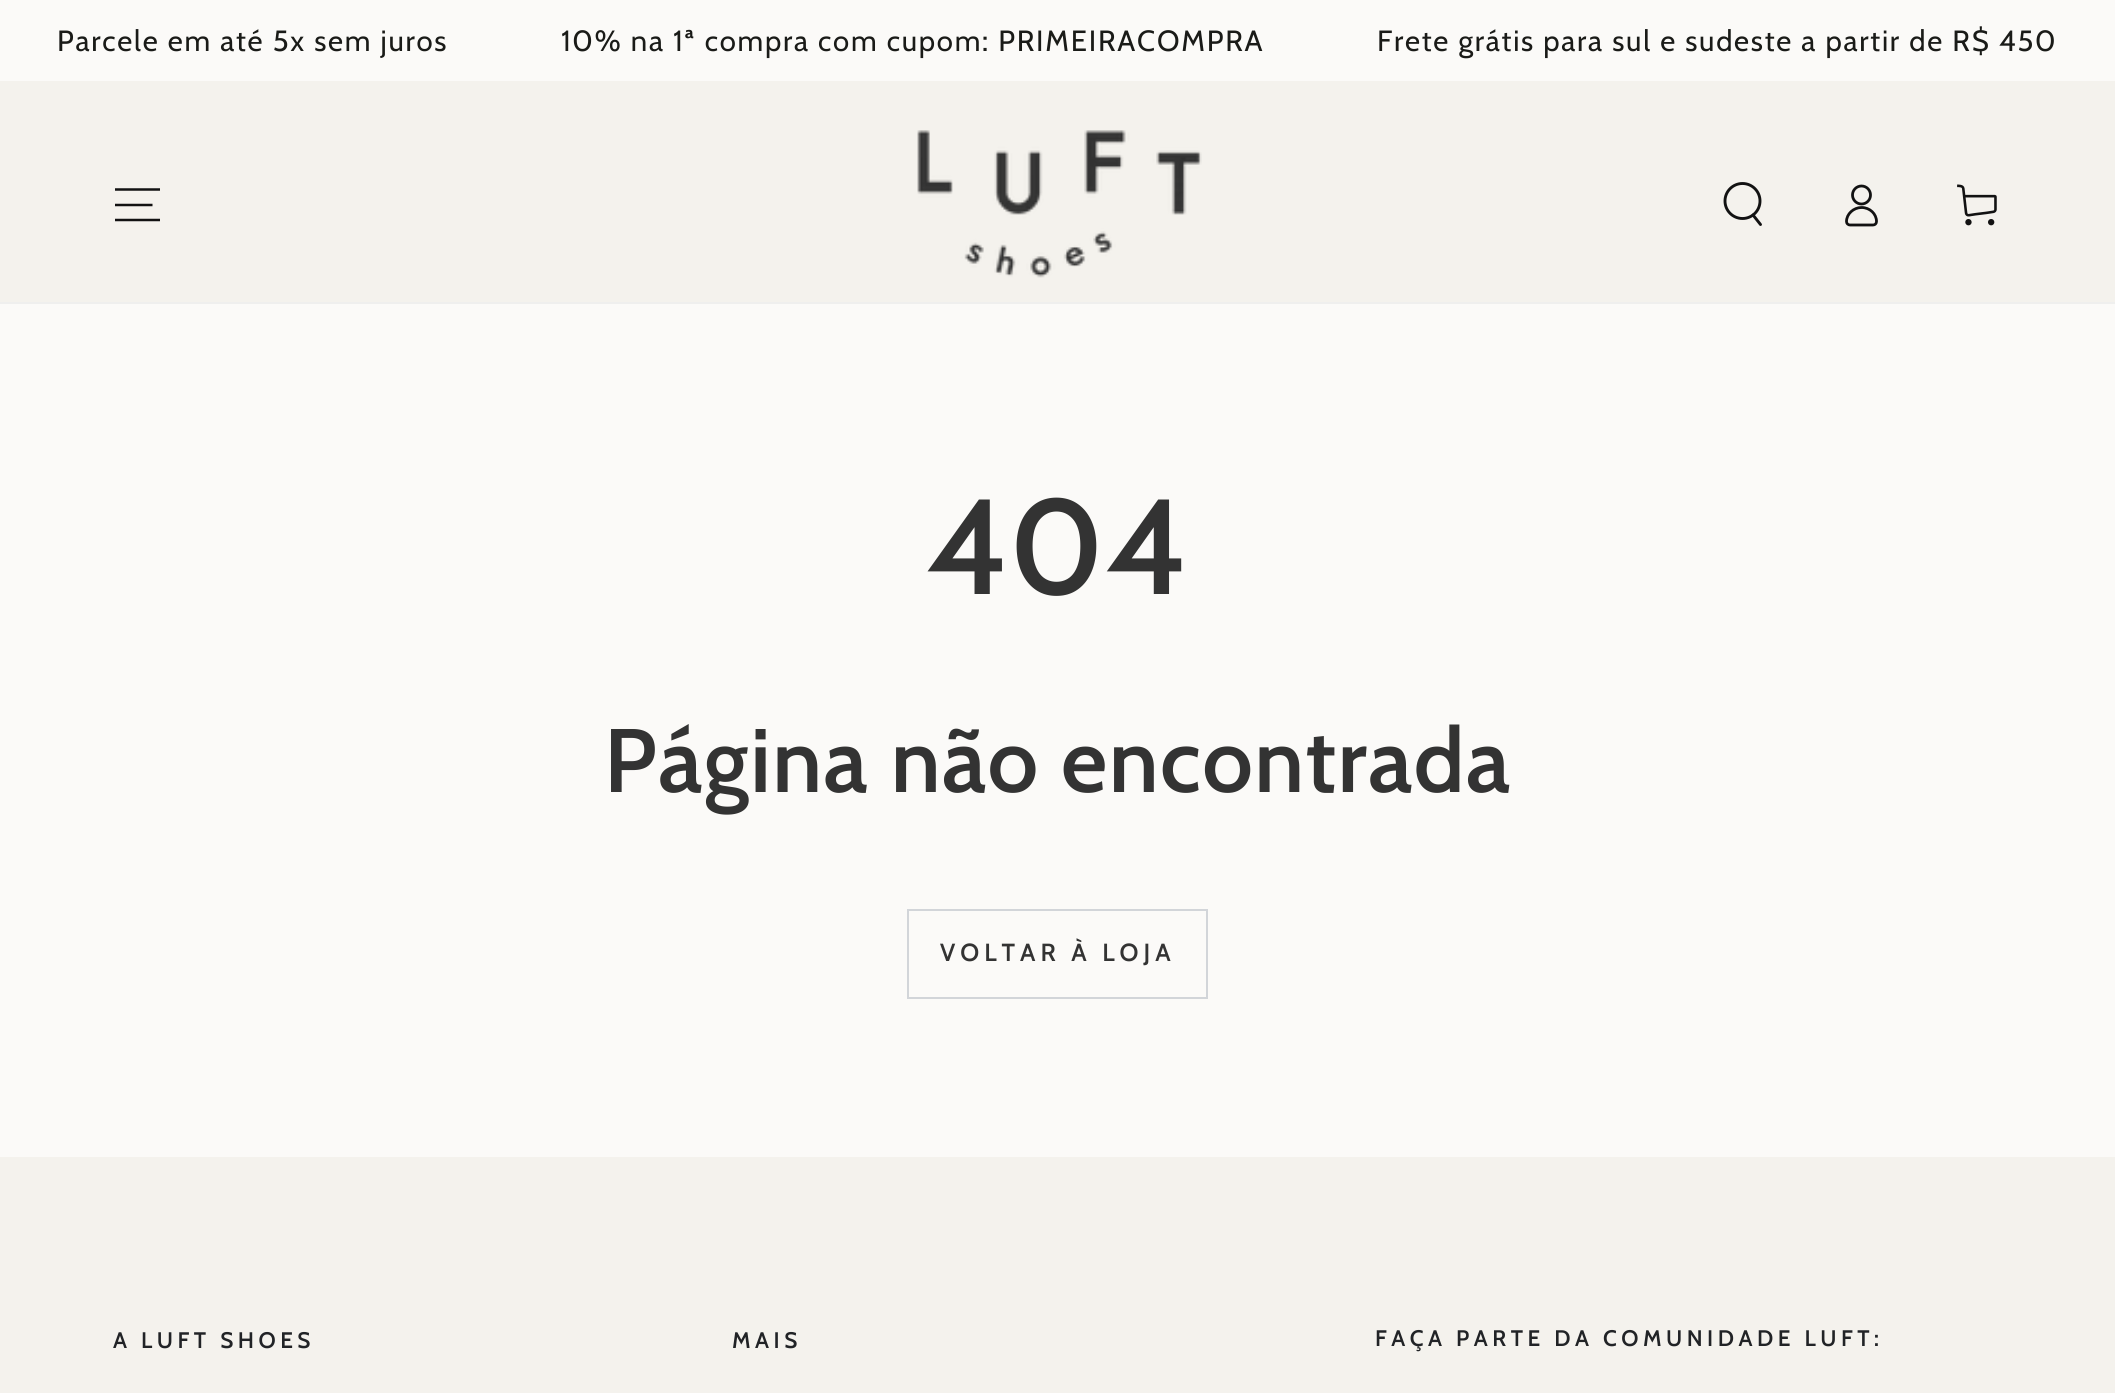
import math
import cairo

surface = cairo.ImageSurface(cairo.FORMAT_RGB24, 2115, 1393)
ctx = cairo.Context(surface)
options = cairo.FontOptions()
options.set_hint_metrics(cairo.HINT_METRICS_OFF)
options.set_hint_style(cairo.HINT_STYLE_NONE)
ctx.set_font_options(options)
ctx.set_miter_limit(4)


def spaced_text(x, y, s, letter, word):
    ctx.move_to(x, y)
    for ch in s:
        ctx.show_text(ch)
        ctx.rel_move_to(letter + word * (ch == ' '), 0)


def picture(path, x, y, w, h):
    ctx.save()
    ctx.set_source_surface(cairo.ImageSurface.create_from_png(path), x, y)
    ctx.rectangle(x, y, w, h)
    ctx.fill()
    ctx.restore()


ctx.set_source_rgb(0.984, 0.98, 0.969)
ctx.paint()
ctx.select_font_face("Cabin")
ctx.set_font_size(29.25)
ctx.set_source_rgb(0.102, 0.106, 0.094)
spaced_text(57, 51, "Parcele em até 5x sem juros", 1.75, 0)
spaced_text(561, 51, "10% na 1ª compra com cupom: PRIMEIRACOMPRA", 1.75, 0)
spaced_text(1377, 51, "Frete grátis para sul e sudeste a partir de R$ 450", 1.75, 0)
ctx.set_source_rgb(0.937, 0.937, 0.933)
ctx.rectangle(0, 302, 2115, 2)
ctx.fill()
ctx.set_source_rgb(0.957, 0.949, 0.929)
ctx.rectangle(0, 81, 2115, 221)
ctx.fill()
ctx.new_path()
ctx.move_to(115, 220)
ctx.line_to(160, 220)
ctx.move_to(115, 205)
ctx.line_to(152.5, 205)
ctx.move_to(115, 189.5)
ctx.line_to(160, 189.5)
ctx.set_source_rgb(0.071, 0.071, 0.071)
ctx.set_line_width(2.5)
ctx.stroke()
picture("img1.png", 917, 130, 285, 148)
ctx.arc(1742.5, 201, 17.5, 0, 2 * math.pi)
ctx.set_line_width(2.9)
ctx.stroke()
ctx.new_path()
ctx.move_to(1753, 215)
ctx.line_to(1760.5, 224.5)
ctx.set_line_cap(cairo.LINE_CAP_ROUND)
ctx.stroke()
ctx.new_path()
ctx.move_to(1861.5, 207.5)
ctx.curve_to(1853.5, 207.5, 1846.5, 214, 1846.5, 221.5)
ctx.curve_to(1846.5, 223.5, 1848, 225, 1850, 225)
ctx.line_to(1873, 225)
ctx.curve_to(1875, 225, 1876.5, 223.5, 1876.5, 221.5)
ctx.curve_to(1876.5, 214, 1870, 207.5, 1861.5, 207.5)
ctx.close_path()
ctx.set_line_width(2.8)
ctx.set_line_cap(cairo.LINE_CAP_BUTT)
ctx.stroke()
ctx.arc(1861.5, 195, 9, 0, 2 * math.pi)
ctx.stroke()
picture("img2.png", 1957, 184, 40, 42)
ctx.select_font_face("Cabin SemiBold")
ctx.set_font_size(135)
ctx.set_source_rgb(0.2, 0.2, 0.2)
spaced_text(926, 594, "404", 1.35, 0)
ctx.set_font_size(90)
spaced_text(604, 792, "Página não encontrada", 1.35, 0)
ctx.rectangle(908, 910, 299, 88)
ctx.set_source_rgb(0.824, 0.835, 0.851)
ctx.set_line_width(2)
ctx.stroke()
ctx.set_font_size(24.75)
ctx.set_source_rgb(0.2, 0.2, 0.2)
spaced_text(940, 961, "VOLTAR À LOJA", 5, 0)
ctx.set_source_rgb(0.957, 0.949, 0.929)
ctx.rectangle(0, 1157, 2115, 236)
ctx.fill()
ctx.set_font_size(22.5)
ctx.set_source_rgb(0.129, 0.137, 0.149)
spaced_text(113, 1348, "A LUFT SHOES", 4.5, 0)
spaced_text(732, 1348, "MAIS", 4.5, 0)
spaced_text(1375, 1346, "FAÇA PARTE DA COMUNIDADE LUFT:", 4.5, 0)
surface.write_to_png("page.png")
